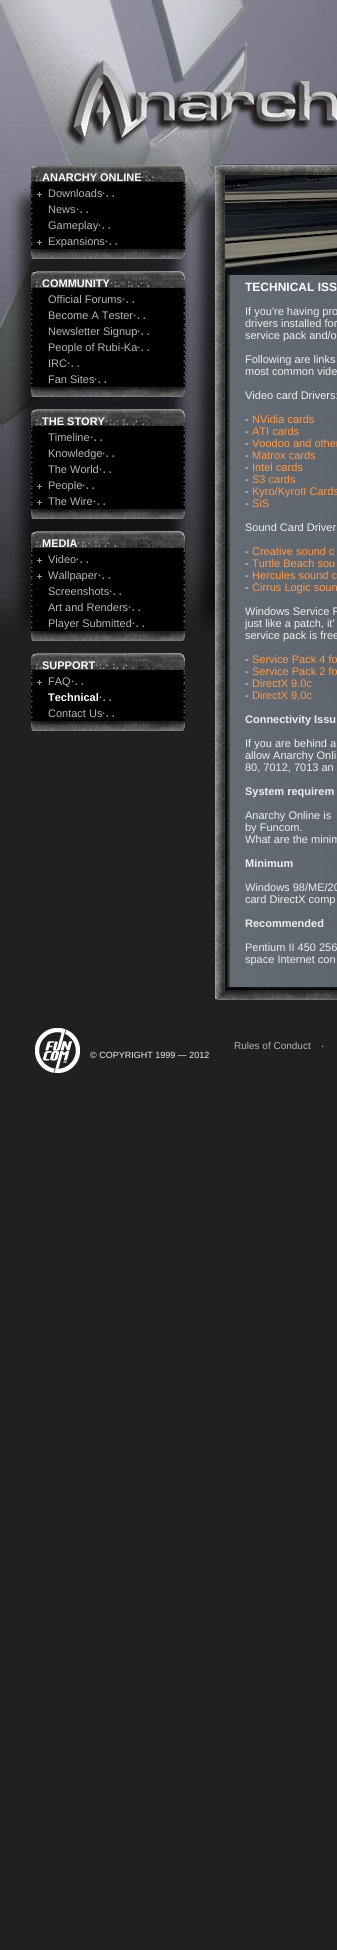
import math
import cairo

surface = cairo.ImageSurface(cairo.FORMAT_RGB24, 337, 1950)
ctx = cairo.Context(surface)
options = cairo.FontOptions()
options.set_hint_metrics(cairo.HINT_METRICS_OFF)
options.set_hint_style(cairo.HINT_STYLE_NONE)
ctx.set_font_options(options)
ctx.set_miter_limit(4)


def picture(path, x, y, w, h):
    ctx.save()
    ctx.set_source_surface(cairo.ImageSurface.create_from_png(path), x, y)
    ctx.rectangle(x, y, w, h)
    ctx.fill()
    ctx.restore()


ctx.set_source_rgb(0.125, 0.125, 0.125)
ctx.paint()
picture("img1.png", 0, 0, 215, 631)
picture("img2.png", 215, 175, 122, 812)
picture("img3.png", 215, 0, 122, 165)
picture("img4.png", 225, 165, 112, 10)
picture("img5.png", 215, 165, 10, 10)
picture("img6.png", 31, 165, 155, 20)
ctx.select_font_face("Liberation Sans", cairo.FONT_SLANT_NORMAL, cairo.FONT_WEIGHT_BOLD)
ctx.set_font_size(11)
ctx.set_source_rgb(0.565, 0.565, 0.565)
ctx.move_to(35, 181)
ctx.show_text(":.")
ctx.set_source_rgb(1, 1, 1)
ctx.move_to(42, 181)
ctx.show_text("ANARCHY ONLINE")
ctx.set_source_rgb(0.565, 0.565, 0.565)
ctx.move_to(141, 181)
ctx.show_text("·:.·")
picture("img7.png", 30, 182, 156, 67)
picture("img8.png", 30, 185, 156, 14)
ctx.select_font_face("Liberation Sans")
ctx.set_source_rgb(0.706, 0.706, 0.722)
ctx.move_to(48, 197)
ctx.show_text("Downloads")
ctx.select_font_face("Liberation Sans", cairo.FONT_SLANT_NORMAL, cairo.FONT_WEIGHT_BOLD)
ctx.set_source_rgb(0.565, 0.565, 0.565)
ctx.move_to(102, 197)
ctx.show_text("·. .")
picture("img9.png", 30, 202, 156, 15)
ctx.select_font_face("Liberation Sans")
ctx.set_source_rgb(0.706, 0.706, 0.722)
ctx.move_to(48, 213)
ctx.show_text("News")
ctx.select_font_face("Liberation Sans", cairo.FONT_SLANT_NORMAL, cairo.FONT_WEIGHT_BOLD)
ctx.set_source_rgb(0.565, 0.565, 0.565)
ctx.move_to(76, 213)
ctx.show_text("·. .")
picture("img10.png", 30, 218, 156, 13)
ctx.select_font_face("Liberation Sans")
ctx.set_source_rgb(0.706, 0.706, 0.722)
ctx.move_to(48, 229)
ctx.show_text("Gameplay")
ctx.select_font_face("Liberation Sans", cairo.FONT_SLANT_NORMAL, cairo.FONT_WEIGHT_BOLD)
ctx.set_source_rgb(0.565, 0.565, 0.565)
ctx.move_to(98, 229)
ctx.show_text("·. .")
picture("img11.png", 30, 237, 156, 12)
ctx.select_font_face("Liberation Sans")
ctx.set_source_rgb(0.706, 0.706, 0.722)
ctx.move_to(48, 245)
ctx.show_text("Expansions")
ctx.select_font_face("Liberation Sans", cairo.FONT_SLANT_NORMAL, cairo.FONT_WEIGHT_BOLD)
ctx.set_source_rgb(0.565, 0.565, 0.565)
ctx.move_to(105, 245)
ctx.show_text("·. .")
picture("img12.png", 31, 249, 154, 10)
picture("img13.png", 31, 271, 155, 20)
ctx.move_to(35, 287)
ctx.show_text(":.")
ctx.set_source_rgb(1, 1, 1)
ctx.move_to(42, 287)
ctx.show_text("COMMUNITY")
ctx.set_source_rgb(0.565, 0.565, 0.565)
ctx.move_to(110, 287)
ctx.show_text("·:.· :. .· .")
picture("img14.png", 30, 288, 156, 102)
picture("img15.png", 30, 292, 156, 13)
ctx.select_font_face("Liberation Sans")
ctx.set_source_rgb(0.706, 0.706, 0.722)
ctx.move_to(48, 303)
ctx.show_text("Official Forums")
ctx.select_font_face("Liberation Sans", cairo.FONT_SLANT_NORMAL, cairo.FONT_WEIGHT_BOLD)
ctx.set_source_rgb(0.565, 0.565, 0.565)
ctx.move_to(122, 303)
ctx.show_text("·. .")
picture("img16.png", 30, 308, 156, 15)
ctx.select_font_face("Liberation Sans")
ctx.set_source_rgb(0.706, 0.706, 0.722)
ctx.move_to(48, 319)
ctx.show_text("Become A Tester")
ctx.select_font_face("Liberation Sans", cairo.FONT_SLANT_NORMAL, cairo.FONT_WEIGHT_BOLD)
ctx.set_source_rgb(0.565, 0.565, 0.565)
ctx.move_to(133, 319)
ctx.show_text("·. .")
picture("img17.png", 30, 324, 156, 13)
ctx.select_font_face("Liberation Sans")
ctx.set_source_rgb(0.706, 0.706, 0.722)
ctx.move_to(48, 335)
ctx.show_text("Newsletter Signup")
ctx.select_font_face("Liberation Sans", cairo.FONT_SLANT_NORMAL, cairo.FONT_WEIGHT_BOLD)
ctx.set_source_rgb(0.565, 0.565, 0.565)
ctx.move_to(137, 335)
ctx.show_text("·. .")
picture("img18.png", 30, 339, 156, 16)
ctx.select_font_face("Liberation Sans")
ctx.set_source_rgb(0.706, 0.706, 0.722)
ctx.move_to(48, 351)
ctx.show_text("People of Rubi-Ka")
ctx.select_font_face("Liberation Sans", cairo.FONT_SLANT_NORMAL, cairo.FONT_WEIGHT_BOLD)
ctx.set_source_rgb(0.565, 0.565, 0.565)
ctx.move_to(137, 351)
ctx.show_text("·. .")
picture("img19.png", 30, 356, 156, 15)
ctx.select_font_face("Liberation Sans")
ctx.set_source_rgb(0.706, 0.706, 0.722)
ctx.move_to(48, 367)
ctx.show_text("IRC")
ctx.select_font_face("Liberation Sans", cairo.FONT_SLANT_NORMAL, cairo.FONT_WEIGHT_BOLD)
ctx.set_source_rgb(0.565, 0.565, 0.565)
ctx.move_to(67, 367)
ctx.show_text("·. .")
picture("img20.png", 30, 376, 156, 11)
ctx.select_font_face("Liberation Sans")
ctx.set_source_rgb(0.706, 0.706, 0.722)
ctx.move_to(48, 383)
ctx.show_text("Fan Sites")
ctx.select_font_face("Liberation Sans", cairo.FONT_SLANT_NORMAL, cairo.FONT_WEIGHT_BOLD)
ctx.set_source_rgb(0.565, 0.565, 0.565)
ctx.move_to(94, 383)
ctx.show_text("·. .")
picture("img21.png", 31, 387, 154, 10)
picture("img22.png", 31, 409, 155, 20)
ctx.move_to(35, 425)
ctx.show_text(":.")
ctx.set_source_rgb(1, 1, 1)
ctx.move_to(42, 425)
ctx.show_text("THE STORY")
ctx.set_source_rgb(0.565, 0.565, 0.565)
ctx.move_to(105, 425)
ctx.show_text("·:.· :. .· .")
picture("img23.png", 30, 426, 156, 85)
picture("img24.png", 30, 430, 156, 13)
ctx.select_font_face("Liberation Sans")
ctx.set_source_rgb(0.706, 0.706, 0.722)
ctx.move_to(48, 441)
ctx.show_text("Timeline")
ctx.select_font_face("Liberation Sans", cairo.FONT_SLANT_NORMAL, cairo.FONT_WEIGHT_BOLD)
ctx.set_source_rgb(0.565, 0.565, 0.565)
ctx.move_to(90, 441)
ctx.show_text("·. .")
picture("img25.png", 30, 446, 156, 15)
ctx.select_font_face("Liberation Sans")
ctx.set_source_rgb(0.706, 0.706, 0.722)
ctx.move_to(48, 457)
ctx.show_text("Knowledge")
ctx.select_font_face("Liberation Sans", cairo.FONT_SLANT_NORMAL, cairo.FONT_WEIGHT_BOLD)
ctx.set_source_rgb(0.565, 0.565, 0.565)
ctx.move_to(102, 457)
ctx.show_text("·. .")
picture("img26.png", 30, 462, 156, 13)
ctx.select_font_face("Liberation Sans")
ctx.set_source_rgb(0.706, 0.706, 0.722)
ctx.move_to(48, 473)
ctx.show_text("The World")
ctx.select_font_face("Liberation Sans", cairo.FONT_SLANT_NORMAL, cairo.FONT_WEIGHT_BOLD)
ctx.set_source_rgb(0.565, 0.565, 0.565)
ctx.move_to(99, 473)
ctx.show_text("·. .")
picture("img27.png", 30, 481, 156, 12)
ctx.select_font_face("Liberation Sans")
ctx.set_source_rgb(0.706, 0.706, 0.722)
ctx.move_to(48, 489)
ctx.show_text("People")
ctx.select_font_face("Liberation Sans", cairo.FONT_SLANT_NORMAL, cairo.FONT_WEIGHT_BOLD)
ctx.set_source_rgb(0.565, 0.565, 0.565)
ctx.move_to(82, 489)
ctx.show_text("·. .")
picture("img28.png", 30, 493, 156, 16)
ctx.select_font_face("Liberation Sans")
ctx.set_source_rgb(0.706, 0.706, 0.722)
ctx.move_to(48, 505)
ctx.show_text("The Wire")
ctx.select_font_face("Liberation Sans", cairo.FONT_SLANT_NORMAL, cairo.FONT_WEIGHT_BOLD)
ctx.set_source_rgb(0.565, 0.565, 0.565)
ctx.move_to(93, 505)
ctx.show_text("·. .")
picture("img29.png", 31, 509, 154, 10)
picture("img30.png", 31, 531, 155, 20)
ctx.move_to(35, 547)
ctx.show_text(":.")
ctx.set_source_rgb(1, 1, 1)
ctx.move_to(42, 547)
ctx.show_text("MEDIA")
ctx.set_source_rgb(0.565, 0.565, 0.565)
ctx.move_to(77, 547)
ctx.show_text("·:.· :. .· .")
picture("img31.png", 30, 548, 156, 85)
picture("img32.png", 30, 551, 156, 14)
ctx.select_font_face("Liberation Sans")
ctx.set_source_rgb(0.706, 0.706, 0.722)
ctx.move_to(48, 563)
ctx.show_text("Video")
ctx.select_font_face("Liberation Sans", cairo.FONT_SLANT_NORMAL, cairo.FONT_WEIGHT_BOLD)
ctx.set_source_rgb(0.565, 0.565, 0.565)
ctx.move_to(76, 563)
ctx.show_text("·. .")
picture("img33.png", 30, 567, 156, 16)
ctx.select_font_face("Liberation Sans")
ctx.set_source_rgb(0.706, 0.706, 0.722)
ctx.move_to(48, 579)
ctx.show_text("Wallpaper")
ctx.select_font_face("Liberation Sans", cairo.FONT_SLANT_NORMAL, cairo.FONT_WEIGHT_BOLD)
ctx.set_source_rgb(0.565, 0.565, 0.565)
ctx.move_to(98, 579)
ctx.show_text("·. .")
picture("img34.png", 30, 584, 156, 13)
ctx.select_font_face("Liberation Sans")
ctx.set_source_rgb(0.706, 0.706, 0.722)
ctx.move_to(48, 595)
ctx.show_text("Screenshots")
ctx.select_font_face("Liberation Sans", cairo.FONT_SLANT_NORMAL, cairo.FONT_WEIGHT_BOLD)
ctx.set_source_rgb(0.565, 0.565, 0.565)
ctx.move_to(109, 595)
ctx.show_text("·. .")
picture("img35.png", 30, 599, 156, 16)
ctx.select_font_face("Liberation Sans")
ctx.set_source_rgb(0.706, 0.706, 0.722)
ctx.move_to(48, 611)
ctx.show_text("Art and Renders")
ctx.select_font_face("Liberation Sans", cairo.FONT_SLANT_NORMAL, cairo.FONT_WEIGHT_BOLD)
ctx.set_source_rgb(0.565, 0.565, 0.565)
ctx.move_to(128, 611)
ctx.show_text("·. .")
picture("img36.png", 30, 616, 155, 15)
ctx.select_font_face("Liberation Sans")
ctx.set_source_rgb(0.706, 0.706, 0.722)
ctx.move_to(48, 627)
ctx.show_text("Player Submitted")
ctx.select_font_face("Liberation Sans", cairo.FONT_SLANT_NORMAL, cairo.FONT_WEIGHT_BOLD)
ctx.set_source_rgb(0.565, 0.565, 0.565)
ctx.move_to(132, 627)
ctx.show_text("·. .")
picture("img37.png", 31, 631, 154, 10)
picture("img38.png", 31, 653, 155, 20)
ctx.move_to(35, 669)
ctx.show_text(":.")
ctx.set_source_rgb(1, 1, 1)
ctx.move_to(42, 669)
ctx.show_text("SUPPORT")
ctx.set_source_rgb(0.565, 0.565, 0.565)
ctx.move_to(95, 669)
ctx.show_text("·:.· :. .· .")
picture("img39.png", 31, 670, 154, 51)
picture("img40.png", 31, 673, 154, 14)
ctx.select_font_face("Liberation Sans")
ctx.set_source_rgb(0.706, 0.706, 0.722)
ctx.move_to(48, 685)
ctx.show_text("FAQ")
ctx.select_font_face("Liberation Sans", cairo.FONT_SLANT_NORMAL, cairo.FONT_WEIGHT_BOLD)
ctx.set_source_rgb(0.565, 0.565, 0.565)
ctx.move_to(71, 685)
ctx.show_text("·. .")
picture("img41.png", 31, 690, 154, 15)
ctx.set_source_rgb(1, 1, 1)
ctx.move_to(48, 701)
ctx.show_text("Technical")
ctx.set_source_rgb(0.565, 0.565, 0.565)
ctx.move_to(99, 701)
ctx.show_text("·. .")
picture("img42.png", 31, 706, 154, 13)
ctx.select_font_face("Liberation Sans")
ctx.set_source_rgb(0.706, 0.706, 0.722)
ctx.move_to(48, 717)
ctx.show_text("Contact Us")
ctx.select_font_face("Liberation Sans", cairo.FONT_SLANT_NORMAL, cairo.FONT_WEIGHT_BOLD)
ctx.set_source_rgb(0.565, 0.565, 0.565)
ctx.move_to(102, 717)
ctx.show_text("·. .")
picture("img37.png", 31, 721, 154, 10)
picture("img43.png", 225, 175, 112, 100)
ctx.set_font_size(12)
ctx.set_source_rgb(1, 1, 1)
ctx.move_to(245, 291)
ctx.show_text("TECHNICAL ISS")
ctx.select_font_face("Liberation Sans")
ctx.set_font_size(11)
ctx.set_source_rgb(0.937, 0.937, 0.937)
ctx.move_to(245, 315)
ctx.show_text("If you're having pro")
ctx.move_to(245, 327)
ctx.show_text("drivers installed for")
ctx.move_to(245, 339)
ctx.show_text("service pack and/o")
ctx.move_to(245, 363)
ctx.show_text("Following are links")
ctx.move_to(245, 375)
ctx.show_text("most common vide")
ctx.move_to(245, 399)
ctx.show_text("Video card Drivers:")
ctx.move_to(245, 423)
ctx.show_text("-")
ctx.set_source_rgb(1, 0.604, 0.286)
ctx.move_to(252, 423)
ctx.show_text("NVidia cards")
ctx.set_source_rgb(0.937, 0.937, 0.937)
ctx.move_to(245, 435)
ctx.show_text("-")
ctx.set_source_rgb(1, 0.604, 0.286)
ctx.move_to(252, 435)
ctx.show_text("ATI cards")
ctx.set_source_rgb(0.937, 0.937, 0.937)
ctx.move_to(245, 447)
ctx.show_text("-")
ctx.set_source_rgb(1, 0.604, 0.286)
ctx.move_to(252, 447)
ctx.show_text("Voodoo and other")
ctx.set_source_rgb(0.937, 0.937, 0.937)
ctx.move_to(245, 459)
ctx.show_text("-")
ctx.set_source_rgb(1, 0.604, 0.286)
ctx.move_to(252, 459)
ctx.show_text("Matrox cards")
ctx.set_source_rgb(0.937, 0.937, 0.937)
ctx.move_to(245, 471)
ctx.show_text("-")
ctx.set_source_rgb(1, 0.604, 0.286)
ctx.move_to(252, 471)
ctx.show_text("Intel cards")
ctx.set_source_rgb(0.937, 0.937, 0.937)
ctx.move_to(245, 483)
ctx.show_text("-")
ctx.set_source_rgb(1, 0.604, 0.286)
ctx.move_to(252, 483)
ctx.show_text("S3 cards")
ctx.set_source_rgb(0.937, 0.937, 0.937)
ctx.move_to(245, 495)
ctx.show_text("-")
ctx.set_source_rgb(1, 0.604, 0.286)
ctx.move_to(252, 495)
ctx.show_text("Kyro/KyroII Cards")
ctx.set_source_rgb(0.937, 0.937, 0.937)
ctx.move_to(245, 507)
ctx.show_text("-")
ctx.set_source_rgb(1, 0.604, 0.286)
ctx.move_to(252, 507)
ctx.show_text("SiS")
ctx.set_source_rgb(0.937, 0.937, 0.937)
ctx.move_to(245, 531)
ctx.show_text("Sound Card Driver")
ctx.move_to(245, 555)
ctx.show_text("-")
ctx.set_source_rgb(1, 0.604, 0.286)
ctx.move_to(252, 555)
ctx.show_text("Creative sound c")
ctx.set_source_rgb(0.937, 0.937, 0.937)
ctx.move_to(245, 567)
ctx.show_text("-")
ctx.set_source_rgb(1, 0.604, 0.286)
ctx.move_to(252, 567)
ctx.show_text("Turtle Beach sou")
ctx.set_source_rgb(0.937, 0.937, 0.937)
ctx.move_to(245, 579)
ctx.show_text("-")
ctx.set_source_rgb(1, 0.604, 0.286)
ctx.move_to(252, 579)
ctx.show_text("Hercules sound c")
ctx.set_source_rgb(0.937, 0.937, 0.937)
ctx.move_to(245, 591)
ctx.show_text("-")
ctx.set_source_rgb(1, 0.604, 0.286)
ctx.move_to(252, 591)
ctx.show_text("Cirrus Logic soun")
ctx.set_source_rgb(0.937, 0.937, 0.937)
ctx.move_to(245, 615)
ctx.show_text("Windows Service P")
ctx.move_to(245, 627)
ctx.show_text("just like a patch, it'")
ctx.move_to(245, 639)
ctx.show_text("service pack is free")
ctx.move_to(245, 663)
ctx.show_text("-")
ctx.set_source_rgb(1, 0.604, 0.286)
ctx.move_to(252, 663)
ctx.show_text("Service Pack 4 fo")
ctx.set_source_rgb(0.937, 0.937, 0.937)
ctx.move_to(245, 675)
ctx.show_text("-")
ctx.set_source_rgb(1, 0.604, 0.286)
ctx.move_to(252, 675)
ctx.show_text("Service Pack 2 fo")
ctx.set_source_rgb(0.937, 0.937, 0.937)
ctx.move_to(245, 687)
ctx.show_text("-")
ctx.set_source_rgb(1, 0.604, 0.286)
ctx.move_to(252, 687)
ctx.show_text("DirectX 9.0c")
ctx.set_source_rgb(0.937, 0.937, 0.937)
ctx.move_to(245, 699)
ctx.show_text("-")
ctx.set_source_rgb(1, 0.604, 0.286)
ctx.move_to(252, 699)
ctx.show_text("DirectX 9.0c")
ctx.select_font_face("Liberation Sans", cairo.FONT_SLANT_NORMAL, cairo.FONT_WEIGHT_BOLD)
ctx.set_source_rgb(0.937, 0.937, 0.937)
ctx.move_to(245, 723)
ctx.show_text("Connectivity Issu")
ctx.select_font_face("Liberation Sans")
ctx.move_to(245, 747)
ctx.show_text("If you are behind a")
ctx.move_to(245, 759)
ctx.show_text("allow Anarchy Onli")
ctx.move_to(245, 771)
ctx.show_text("80, 7012, 7013 an")
ctx.select_font_face("Liberation Sans", cairo.FONT_SLANT_NORMAL, cairo.FONT_WEIGHT_BOLD)
ctx.move_to(245, 795)
ctx.show_text("System requirem")
ctx.select_font_face("Liberation Sans")
ctx.move_to(245, 819)
ctx.show_text("Anarchy Online is")
ctx.move_to(245, 831)
ctx.show_text("by Funcom.")
ctx.move_to(245, 843)
ctx.show_text("What are the minim")
ctx.select_font_face("Liberation Sans", cairo.FONT_SLANT_NORMAL, cairo.FONT_WEIGHT_BOLD)
ctx.move_to(245, 867)
ctx.show_text("Minimum")
ctx.select_font_face("Liberation Sans")
ctx.move_to(245, 891)
ctx.show_text("Windows 98/ME/20")
ctx.move_to(245, 903)
ctx.show_text("card DirectX comp")
ctx.select_font_face("Liberation Sans", cairo.FONT_SLANT_NORMAL, cairo.FONT_WEIGHT_BOLD)
ctx.move_to(245, 927)
ctx.show_text("Recommended")
ctx.select_font_face("Liberation Sans")
ctx.move_to(245, 951)
ctx.show_text("Pentium II 450 256")
ctx.move_to(245, 963)
ctx.show_text("space Internet con")
picture("img44.png", 225, 987, 112, 13)
picture("img45.png", 215, 987, 10, 13)
ctx.set_font_size(10)
ctx.set_source_rgb(0.706, 0.706, 0.722)
ctx.move_to(234, 1049)
ctx.show_text("Rules of Conduct")
ctx.set_source_rgb(0.937, 0.937, 0.937)
ctx.move_to(321, 1049)
ctx.show_text("·")
picture("img46.png", 35, 1028, 45, 45)
ctx.set_font_size(9)
ctx.move_to(90, 1058)
ctx.show_text("© COPYRIGHT 1999 — 2012")
surface.write_to_png("page.png")
